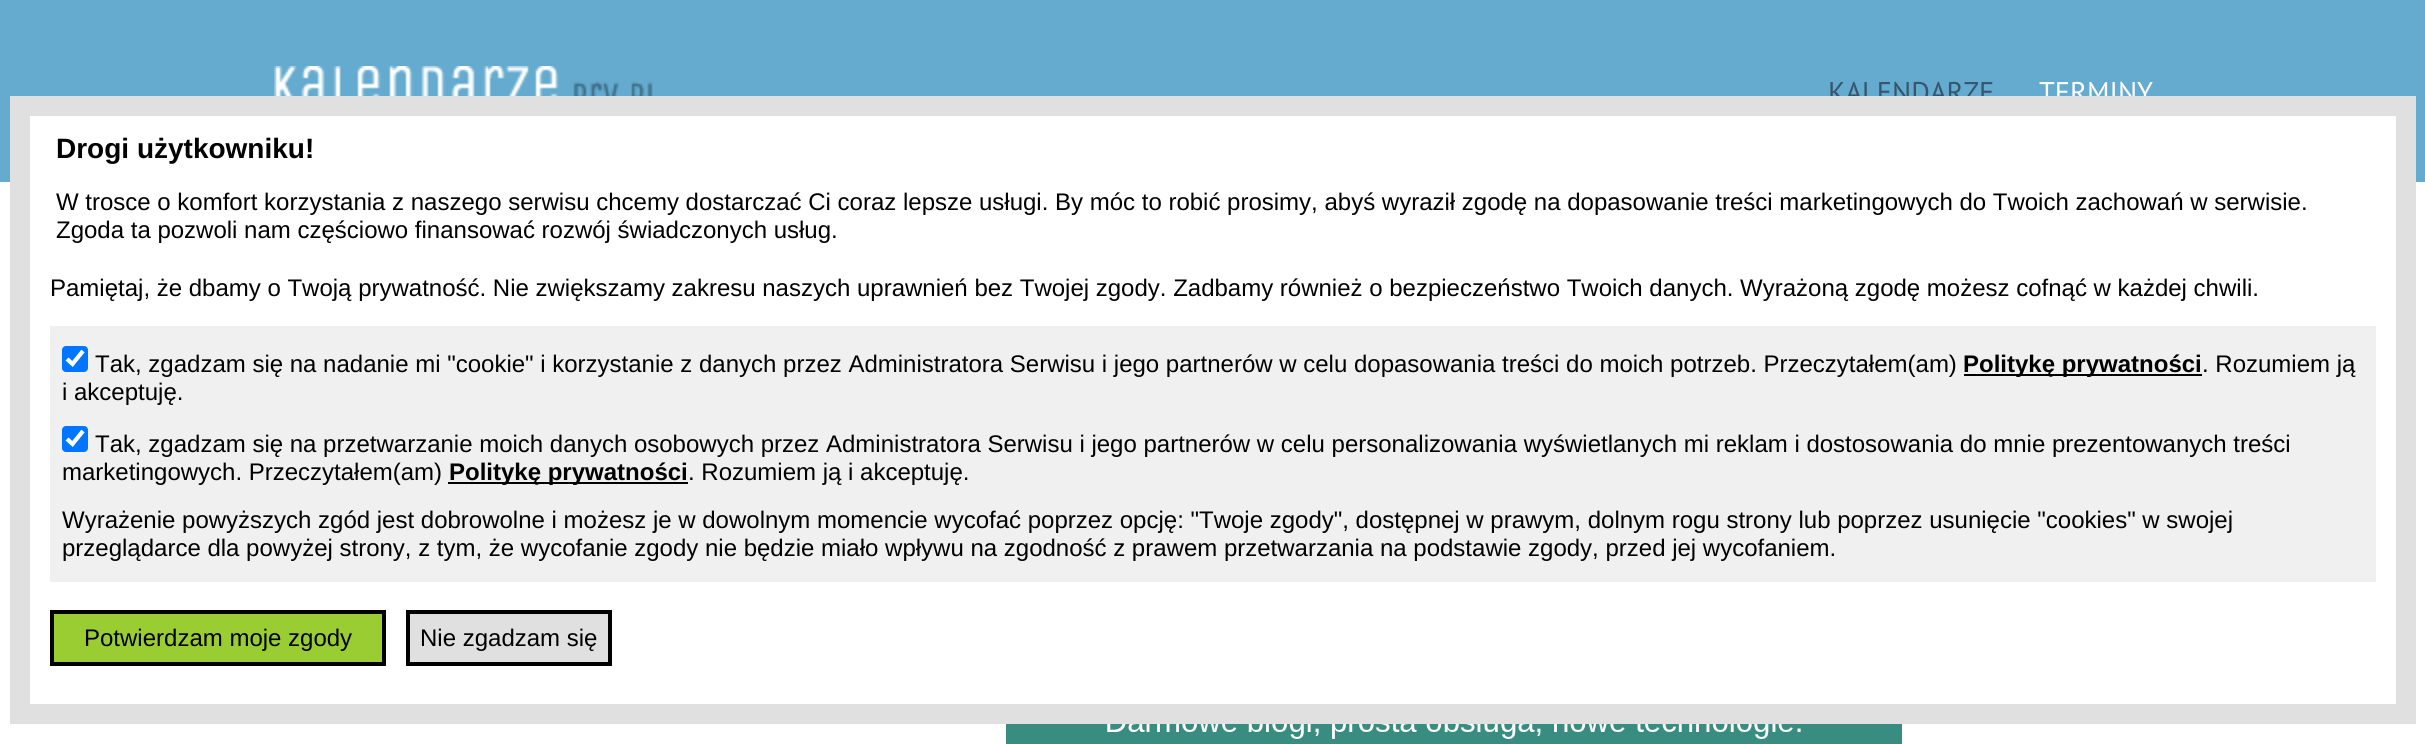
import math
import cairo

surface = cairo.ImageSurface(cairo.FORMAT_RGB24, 2425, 744)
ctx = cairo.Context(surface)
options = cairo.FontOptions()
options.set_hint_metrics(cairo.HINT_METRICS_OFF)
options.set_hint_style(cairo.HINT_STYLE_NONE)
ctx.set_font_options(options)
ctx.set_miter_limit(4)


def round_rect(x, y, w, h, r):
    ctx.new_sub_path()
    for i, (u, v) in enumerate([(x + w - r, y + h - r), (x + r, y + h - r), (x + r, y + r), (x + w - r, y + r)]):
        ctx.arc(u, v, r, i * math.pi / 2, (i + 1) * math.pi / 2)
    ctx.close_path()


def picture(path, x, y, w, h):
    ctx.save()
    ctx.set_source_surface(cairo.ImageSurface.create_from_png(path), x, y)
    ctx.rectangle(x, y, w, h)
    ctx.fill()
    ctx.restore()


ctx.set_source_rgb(1, 1, 1)
ctx.paint()
ctx.set_source_rgb(0.396, 0.671, 0.812)
ctx.rectangle(0, 0, 2425, 182)
ctx.fill()
picture("img1.png", 274, 66, 379, 30)
ctx.select_font_face("PT Sans")
ctx.set_font_size(28.5)
ctx.set_source_rgb(0.212, 0.337, 0.427)
ctx.move_to(1828, 102)
ctx.show_text("KALENDARZE")
ctx.set_source_rgb(1, 1, 1)
ctx.move_to(2039, 102)
ctx.show_text("TERMINY")
ctx.rectangle(30, 116, 2366, 66)
ctx.fill()
ctx.rectangle(20, 106, 2386, 608)
ctx.set_source_rgb(0.878, 0.878, 0.878)
ctx.set_line_width(20)
ctx.stroke()
ctx.select_font_face("Liberation Sans", cairo.FONT_SLANT_NORMAL, cairo.FONT_WEIGHT_BOLD)
ctx.set_font_size(28)
ctx.set_source_rgb(0, 0, 0)
ctx.move_to(56, 158)
ctx.show_text("Drogi użytkowniku!")
ctx.select_font_face("Liberation Sans")
ctx.set_font_size(24)
ctx.move_to(56, 210)
ctx.show_text("W trosce o komfort korzystania z naszego serwisu chcemy dostarczać Ci coraz lepsze usługi. By móc to robić prosimy, abyś wyraził zgodę na dopasowanie treści marketingowych do Twoich zachowań w serwisie.")
ctx.move_to(56, 238)
ctx.show_text("Zgoda ta pozwoli nam częściowo finansować rozwój świadczonych usług.")
ctx.move_to(50, 296)
ctx.show_text("Pamiętaj, że dbamy o Twoją prywatność. Nie zwiększamy zakresu naszych uprawnień bez Twojej zgody. Zadbamy również o bezpieczeństwo Twoich danych. Wyrażoną zgodę możesz cofnąć w każdej chwili.")
ctx.set_source_rgb(0.941, 0.941, 0.941)
ctx.rectangle(50, 326, 2326, 256)
ctx.fill()
ctx.set_source_rgb(0, 0.459, 1)
round_rect(62, 346, 26, 26, 4)
ctx.fill()
ctx.new_path()
ctx.move_to(67, 359)
ctx.line_to(72.5, 364)
ctx.line_to(83, 351)
ctx.set_source_rgb(1, 1, 1)
ctx.set_line_width(4.2)
ctx.stroke()
ctx.set_source_rgb(0, 0, 0)
ctx.move_to(95, 372)
ctx.show_text("Tak, zgadzam się na nadanie mi \"cookie\" i korzystanie z danych przez Administratora Serwisu i jego partnerów w celu dopasowania treści do moich potrzeb. Przeczytałem(am)")
ctx.rectangle(1964, 374, 238, 2)
ctx.fill()
ctx.select_font_face("Liberation Sans", cairo.FONT_SLANT_NORMAL, cairo.FONT_WEIGHT_BOLD)
ctx.move_to(1963, 372)
ctx.show_text("Politykę prywatności")
ctx.select_font_face("Liberation Sans")
ctx.move_to(2202, 372)
ctx.show_text(". Rozumiem ją")
ctx.move_to(62, 400)
ctx.show_text("i akceptuję.")
ctx.set_source_rgb(0, 0.459, 1)
round_rect(62, 426, 26, 26, 4)
ctx.fill()
ctx.new_path()
ctx.move_to(67, 439)
ctx.line_to(72.5, 444)
ctx.line_to(83, 431)
ctx.set_source_rgb(1, 1, 1)
ctx.stroke()
ctx.set_source_rgb(0, 0, 0)
ctx.move_to(95, 452)
ctx.show_text("Tak, zgadzam się na przetwarzanie moich danych osobowych przez Administratora Serwisu i jego partnerów w celu personalizowania wyświetlanych mi reklam i dostosowania do mnie prezentowanych treści")
ctx.move_to(62, 480)
ctx.show_text("marketingowych. Przeczytałem(am)")
ctx.rectangle(448, 482, 240, 2)
ctx.fill()
ctx.select_font_face("Liberation Sans", cairo.FONT_SLANT_NORMAL, cairo.FONT_WEIGHT_BOLD)
ctx.move_to(449, 480)
ctx.show_text("Politykę prywatności")
ctx.select_font_face("Liberation Sans")
ctx.move_to(688, 480)
ctx.show_text(". Rozumiem ją i akceptuję.")
ctx.move_to(62, 528)
ctx.show_text("Wyrażenie powyższych zgód jest dobrowolne i możesz je w dowolnym momencie wycofać poprzez opcję: \"Twoje zgody\", dostępnej w prawym, dolnym rogu strony lub poprzez usunięcie \"cookies\" w swojej")
ctx.move_to(62, 556)
ctx.show_text("przeglądarce dla powyżej strony, z tym, że wycofanie zgody nie będzie miało wpływu na zgodność z prawem przetwarzania na podstawie zgody, przed jej wycofaniem.")
ctx.set_source_rgb(0.604, 0.804, 0.196)
ctx.rectangle(52, 612, 332, 52)
ctx.fill_preserve()
ctx.set_source_rgb(0, 0, 0)
ctx.set_line_width(4)
ctx.stroke()
ctx.move_to(84, 646)
ctx.show_text("Potwierdzam moje zgody")
ctx.set_source_rgb(0.878, 0.878, 0.878)
ctx.rectangle(408, 612, 202, 52)
ctx.fill_preserve()
ctx.set_source_rgb(0, 0, 0)
ctx.stroke()
ctx.move_to(420, 646)
ctx.show_text("Nie zgadzam się")
picture("img2.png", 1006, 724, 898, 20)
surface.write_to_png("page.png")
